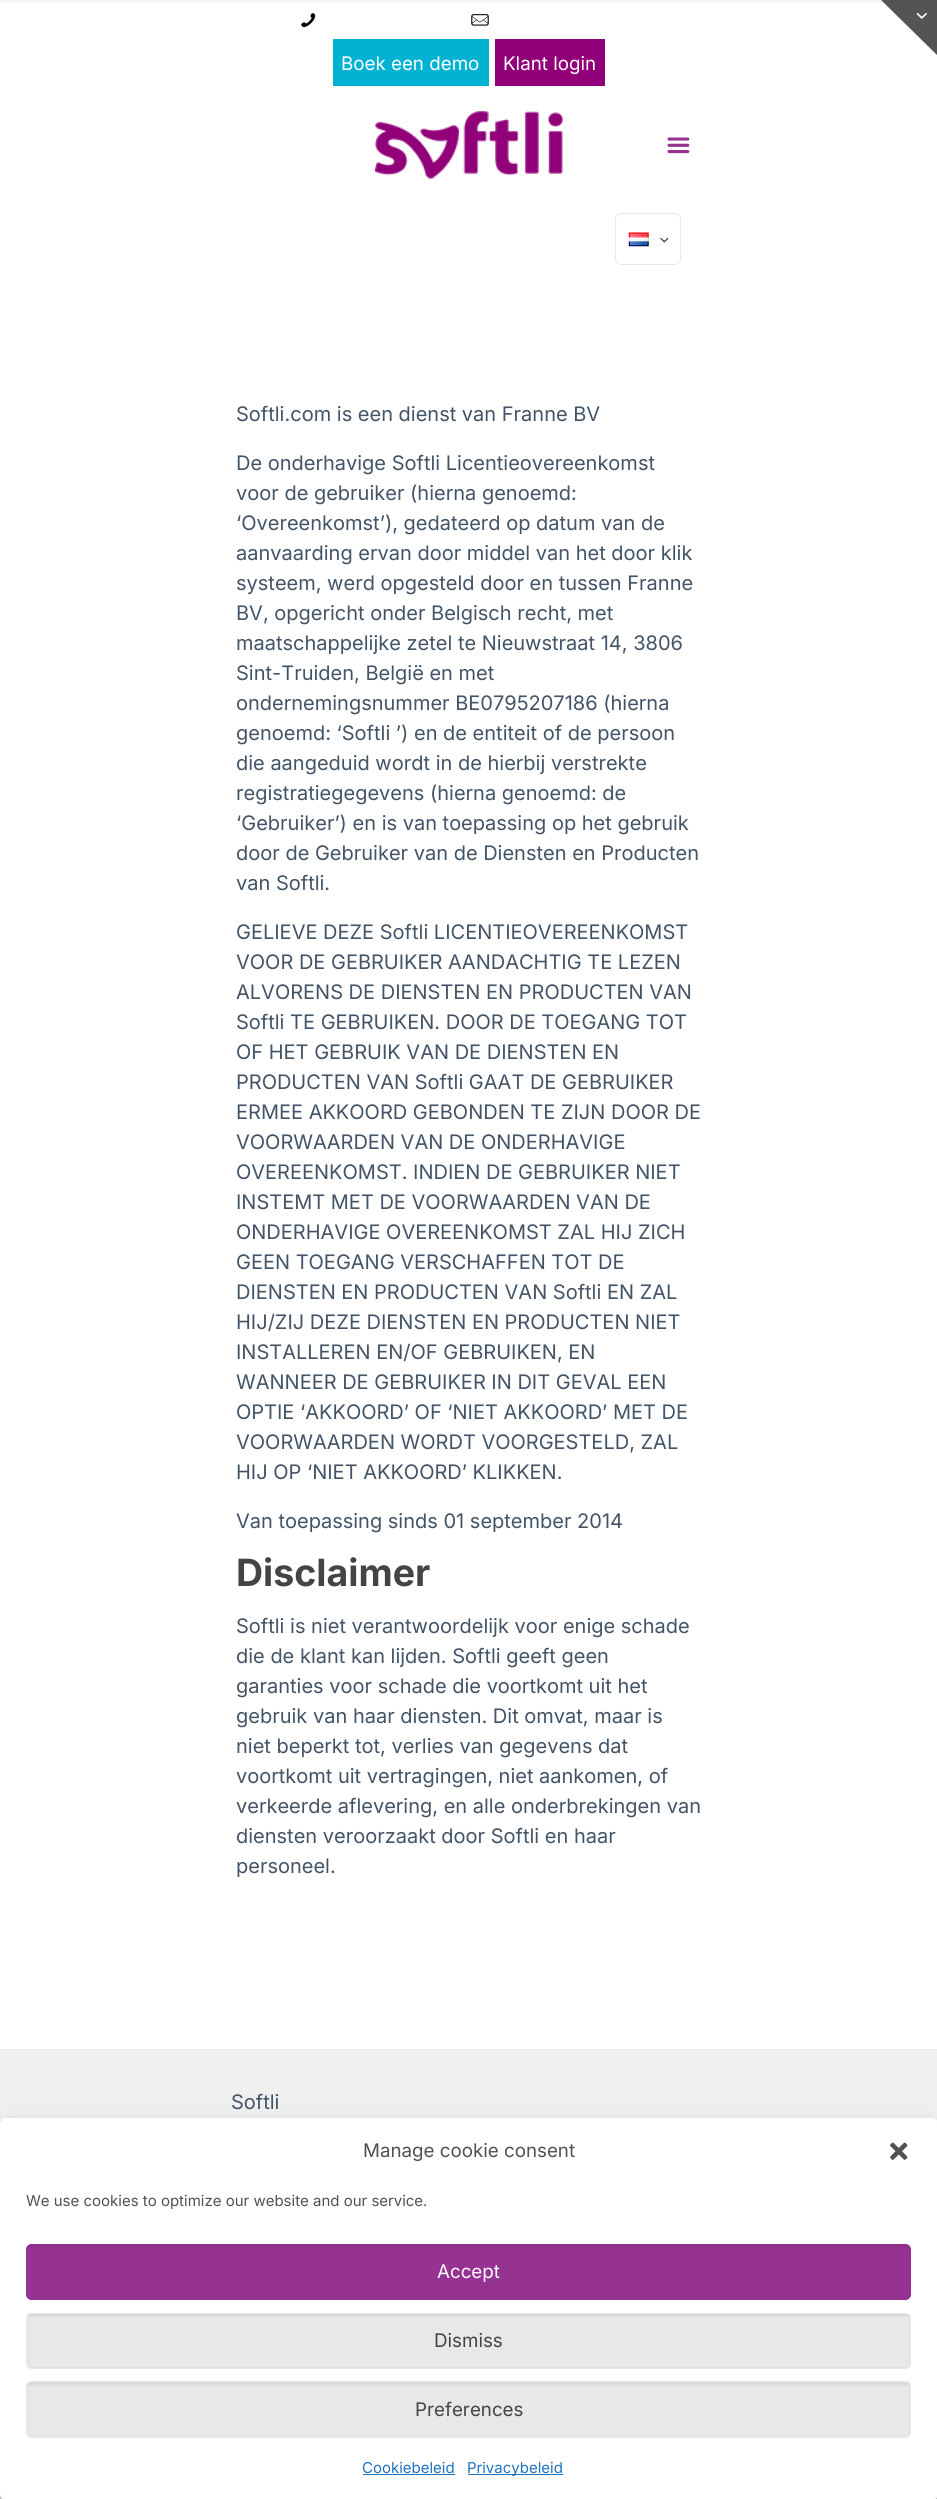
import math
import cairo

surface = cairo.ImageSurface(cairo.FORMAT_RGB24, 937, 2499)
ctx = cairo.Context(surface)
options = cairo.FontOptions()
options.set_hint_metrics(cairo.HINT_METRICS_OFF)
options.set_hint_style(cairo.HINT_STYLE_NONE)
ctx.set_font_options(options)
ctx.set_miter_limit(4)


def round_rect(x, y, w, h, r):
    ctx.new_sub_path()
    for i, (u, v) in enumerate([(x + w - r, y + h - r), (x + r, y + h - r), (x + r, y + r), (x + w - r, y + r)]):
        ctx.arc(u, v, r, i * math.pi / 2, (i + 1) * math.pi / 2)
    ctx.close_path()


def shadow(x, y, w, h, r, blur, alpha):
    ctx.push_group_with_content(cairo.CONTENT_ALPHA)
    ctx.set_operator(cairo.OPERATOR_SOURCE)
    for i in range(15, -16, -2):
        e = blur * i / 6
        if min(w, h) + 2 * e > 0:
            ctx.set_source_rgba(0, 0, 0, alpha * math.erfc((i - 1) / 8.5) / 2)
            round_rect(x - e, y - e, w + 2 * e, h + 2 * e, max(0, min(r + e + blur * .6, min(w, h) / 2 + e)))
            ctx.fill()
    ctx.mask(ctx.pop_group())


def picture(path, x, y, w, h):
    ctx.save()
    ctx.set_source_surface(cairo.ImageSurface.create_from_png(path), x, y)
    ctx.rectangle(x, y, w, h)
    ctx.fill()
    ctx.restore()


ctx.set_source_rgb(1, 1, 1)
ctx.paint()
ctx.set_source_rgb(0.961, 0.961, 0.961)
ctx.rectangle(0, 0, 884, 3)
ctx.fill()
ctx.set_source_rgb(0.329, 0.329, 0.329)
ctx.new_path()
ctx.move_to(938, 0)
ctx.line_to(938, 56)
ctx.line_to(881, 0)
ctx.close_path()
ctx.fill()
picture("img1.png", 916, 12, 11, 7)
picture("img2.png", 301, 13, 15, 15)
picture("img3.png", 471, 14, 18, 12)
ctx.set_source_rgb(0.008, 0.698, 0.824)
ctx.rectangle(333, 39, 156, 47)
ctx.fill()
ctx.select_font_face("Inter")
ctx.set_font_size(18.75)
ctx.set_source_rgb(1, 1, 1)
ctx.move_to(341, 70)
ctx.show_text("Boek een demo")
ctx.set_source_rgb(0.573, 0, 0.475)
ctx.rectangle(495, 39, 110, 47)
ctx.fill()
ctx.set_source_rgb(1, 1, 1)
ctx.move_to(503, 70)
ctx.show_text("Klant login")
picture("img4.png", 375, 111, 188, 68)
picture("img5.png", 667, 137, 23, 17)
round_rect(615.5, 213.5, 65, 51, 5.5)
ctx.set_source_rgb(0.91, 0.91, 0.91)
ctx.set_line_width(1)
ctx.stroke()
picture("img6.png", 628, 232, 21, 15)
picture("img7.png", 660, 237, 9, 6)
ctx.set_font_size(20)
ctx.set_source_rgb(0.259, 0.329, 0.4)
ctx.move_to(236, 421)
ctx.show_text("Softli.com is een dienst van Franne BV")
ctx.move_to(236, 470)
ctx.show_text("De onderhavige Softli Licentieovereenkomst")
ctx.move_to(236, 500)
ctx.show_text("voor de gebruiker (hierna genoemd:")
ctx.move_to(236, 530)
ctx.show_text("‘Overeenkomst’), gedateerd op datum van de")
ctx.move_to(236, 560)
ctx.show_text("aanvaarding ervan door middel van het door klik")
ctx.move_to(236, 590)
ctx.show_text("systeem, werd opgesteld door en tussen Franne")
ctx.move_to(236, 620)
ctx.show_text("BV, opgericht onder Belgisch recht, met")
ctx.move_to(236, 650)
ctx.show_text("maatschappelijke zetel te Nieuwstraat 14, 3806")
ctx.move_to(236, 680)
ctx.show_text("Sint-Truiden, België en met")
ctx.move_to(236, 710)
ctx.show_text("ondernemingsnummer BE0795207186 (hierna")
ctx.move_to(236, 740)
ctx.show_text("genoemd: ‘Softli ’) en de entiteit of de persoon")
ctx.move_to(236, 770)
ctx.show_text("die aangeduid wordt in de hierbij verstrekte")
ctx.move_to(236, 800)
ctx.show_text("registratiegegevens (hierna genoemd: de")
ctx.move_to(236, 830)
ctx.show_text("‘Gebruiker’) en is van toepassing op het gebruik")
ctx.move_to(236, 860)
ctx.show_text("door de Gebruiker van de Diensten en Producten")
ctx.move_to(236, 890)
ctx.show_text("van Softli.")
ctx.move_to(236, 939)
ctx.show_text("GELIEVE DEZE Softli LICENTIEOVEREENKOMST")
ctx.move_to(236, 969)
ctx.show_text("VOOR DE GEBRUIKER AANDACHTIG TE LEZEN")
ctx.move_to(236, 999)
ctx.show_text("ALVORENS DE DIENSTEN EN PRODUCTEN VAN")
ctx.move_to(236, 1029)
ctx.show_text("Softli TE GEBRUIKEN. DOOR DE TOEGANG TOT")
ctx.move_to(236, 1059)
ctx.show_text("OF HET GEBRUIK VAN DE DIENSTEN EN")
ctx.move_to(236, 1089)
ctx.show_text("PRODUCTEN VAN Softli GAAT DE GEBRUIKER")
ctx.move_to(236, 1119)
ctx.show_text("ERMEE AKKOORD GEBONDEN TE ZIJN DOOR DE")
ctx.move_to(236, 1149)
ctx.show_text("VOORWAARDEN VAN DE ONDERHAVIGE")
ctx.move_to(236, 1179)
ctx.show_text("OVEREENKOMST. INDIEN DE GEBRUIKER NIET")
ctx.move_to(236, 1209)
ctx.show_text("INSTEMT MET DE VOORWAARDEN VAN DE")
ctx.move_to(236, 1239)
ctx.show_text("ONDERHAVIGE OVEREENKOMST ZAL HIJ ZICH")
ctx.move_to(236, 1269)
ctx.show_text("GEEN TOEGANG VERSCHAFFEN TOT DE")
ctx.move_to(236, 1299)
ctx.show_text("DIENSTEN EN PRODUCTEN VAN Softli EN ZAL")
ctx.move_to(236, 1329)
ctx.show_text("HIJ/ZIJ DEZE DIENSTEN EN PRODUCTEN NIET")
ctx.move_to(236, 1359)
ctx.show_text("INSTALLEREN EN/OF GEBRUIKEN, EN")
ctx.move_to(236, 1389)
ctx.show_text("WANNEER DE GEBRUIKER IN DIT GEVAL EEN")
ctx.move_to(236, 1419)
ctx.show_text("OPTIE ‘AKKOORD’ OF ‘NIET AKKOORD’ MET DE")
ctx.move_to(236, 1449)
ctx.show_text("VOORWAARDEN WORDT VOORGESTELD, ZAL")
ctx.move_to(236, 1479)
ctx.show_text("HIJ OP ‘NIET AKKOORD’ KLIKKEN.")
ctx.move_to(236, 1528)
ctx.show_text("Van toepassing sinds 01 september 2014")
ctx.select_font_face("Inter", cairo.FONT_SLANT_NORMAL, cairo.FONT_WEIGHT_BOLD)
ctx.set_font_size(37.5)
ctx.set_source_rgb(0.267, 0.267, 0.267)
ctx.move_to(236, 1586)
ctx.show_text("Disclaimer")
ctx.select_font_face("Inter")
ctx.set_font_size(20)
ctx.set_source_rgb(0.259, 0.329, 0.4)
ctx.move_to(236, 1633)
ctx.show_text("Softli is niet verantwoordelijk voor enige schade")
ctx.move_to(236, 1663)
ctx.show_text("die de klant kan lijden. Softli geeft geen")
ctx.move_to(236, 1693)
ctx.show_text("garanties voor schade die voortkomt uit het")
ctx.move_to(236, 1723)
ctx.show_text("gebruik van haar diensten. Dit omvat, maar is")
ctx.move_to(236, 1753)
ctx.show_text("niet beperkt tot, verlies van gegevens dat")
ctx.move_to(236, 1783)
ctx.show_text("voortkomt uit vertragingen, niet aankomen, of")
ctx.move_to(236, 1813)
ctx.show_text("verkeerde aflevering, en alle onderbrekingen van")
ctx.move_to(236, 1843)
ctx.show_text("diensten veroorzaakt door Softli en haar")
ctx.move_to(236, 1873)
ctx.show_text("personeel.")
ctx.set_source_rgb(0.941, 0.941, 0.941)
ctx.rectangle(0, 2049, 937, 450)
ctx.fill()
ctx.set_source_rgb(0.259, 0.329, 0.4)
ctx.move_to(231, 2109)
ctx.show_text("Softli")
ctx.set_source_rgb(0, 0, 0)
shadow(0, 2125, 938, 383, 6, 4, 0.23)
shadow(0, 2130, 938, 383, 6, 12.5, 0.19)
ctx.set_source_rgb(1, 1, 1)
round_rect(0.5, 2118.5, 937, 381, 5.5)
ctx.fill_preserve()
ctx.stroke()
ctx.set_font_size(18.75)
ctx.set_source_rgb(0.318, 0.318, 0.318)
ctx.move_to(363, 2157)
ctx.show_text("Manage cookie consent")
picture("img8.png", 890, 2142, 18, 18)
ctx.set_font_size(15)
ctx.move_to(26, 2206)
ctx.show_text("We use cookies to optimize our website and our service.")
ctx.set_source_rgb(0.588, 0.196, 0.573)
round_rect(26, 2244, 885, 56, 6)
ctx.fill()
ctx.set_source_rgba(0, 0, 0, 0.05)
ctx.rectangle(27, 2245, 884, 3)
ctx.fill()
ctx.rectangle(28.5, 2245.5, 881, 53)
ctx.set_source_rgba(0, 0, 0, 0.03)
ctx.stroke()
round_rect(26.5, 2244.5, 884, 55, 5.5)
ctx.set_source_rgb(0.588, 0.196, 0.573)
ctx.stroke()
ctx.set_font_size(18.75)
ctx.set_source_rgb(1, 1, 1)
ctx.move_to(437, 2278)
ctx.show_text("Accept")
ctx.set_source_rgb(0.91, 0.91, 0.91)
round_rect(26, 2313, 885, 56, 6)
ctx.fill()
picture("img9.png", 27, 2314, 884, 3)
ctx.rectangle(28.5, 2314.5, 881, 53)
ctx.set_source_rgba(0, 0, 0, 0.03)
ctx.stroke()
round_rect(26.5, 2313.5, 884, 55, 5.5)
ctx.set_source_rgb(0.91, 0.91, 0.91)
ctx.stroke()
ctx.set_source_rgb(0.267, 0.267, 0.267)
ctx.move_to(434, 2347)
ctx.show_text("Dismiss")
ctx.set_source_rgb(0.91, 0.91, 0.91)
round_rect(26, 2381, 885, 57, 6)
ctx.fill()
ctx.set_source_rgba(0, 0, 0, 0.05)
ctx.rectangle(27, 2382, 884, 4)
ctx.fill()
ctx.rectangle(28.5, 2383.5, 881, 52)
ctx.set_source_rgba(0, 0, 0, 0.03)
ctx.stroke()
round_rect(26.5, 2381.5, 884, 56, 5.5)
ctx.set_source_rgb(0.91, 0.91, 0.91)
ctx.stroke()
ctx.set_source_rgb(0.267, 0.267, 0.267)
ctx.move_to(415, 2416)
ctx.show_text("Preferences")
ctx.set_font_size(15)
ctx.set_source_rgb(0.118, 0.451, 0.745)
ctx.move_to(362, 2473)
ctx.show_text("Cookiebeleid")
ctx.rectangle(363, 2474, 92, 1)
ctx.fill()
ctx.rectangle(468, 2474, 95, 1)
ctx.fill()
ctx.move_to(467, 2473)
ctx.show_text("Privacybeleid")
surface.write_to_png("page.png")
